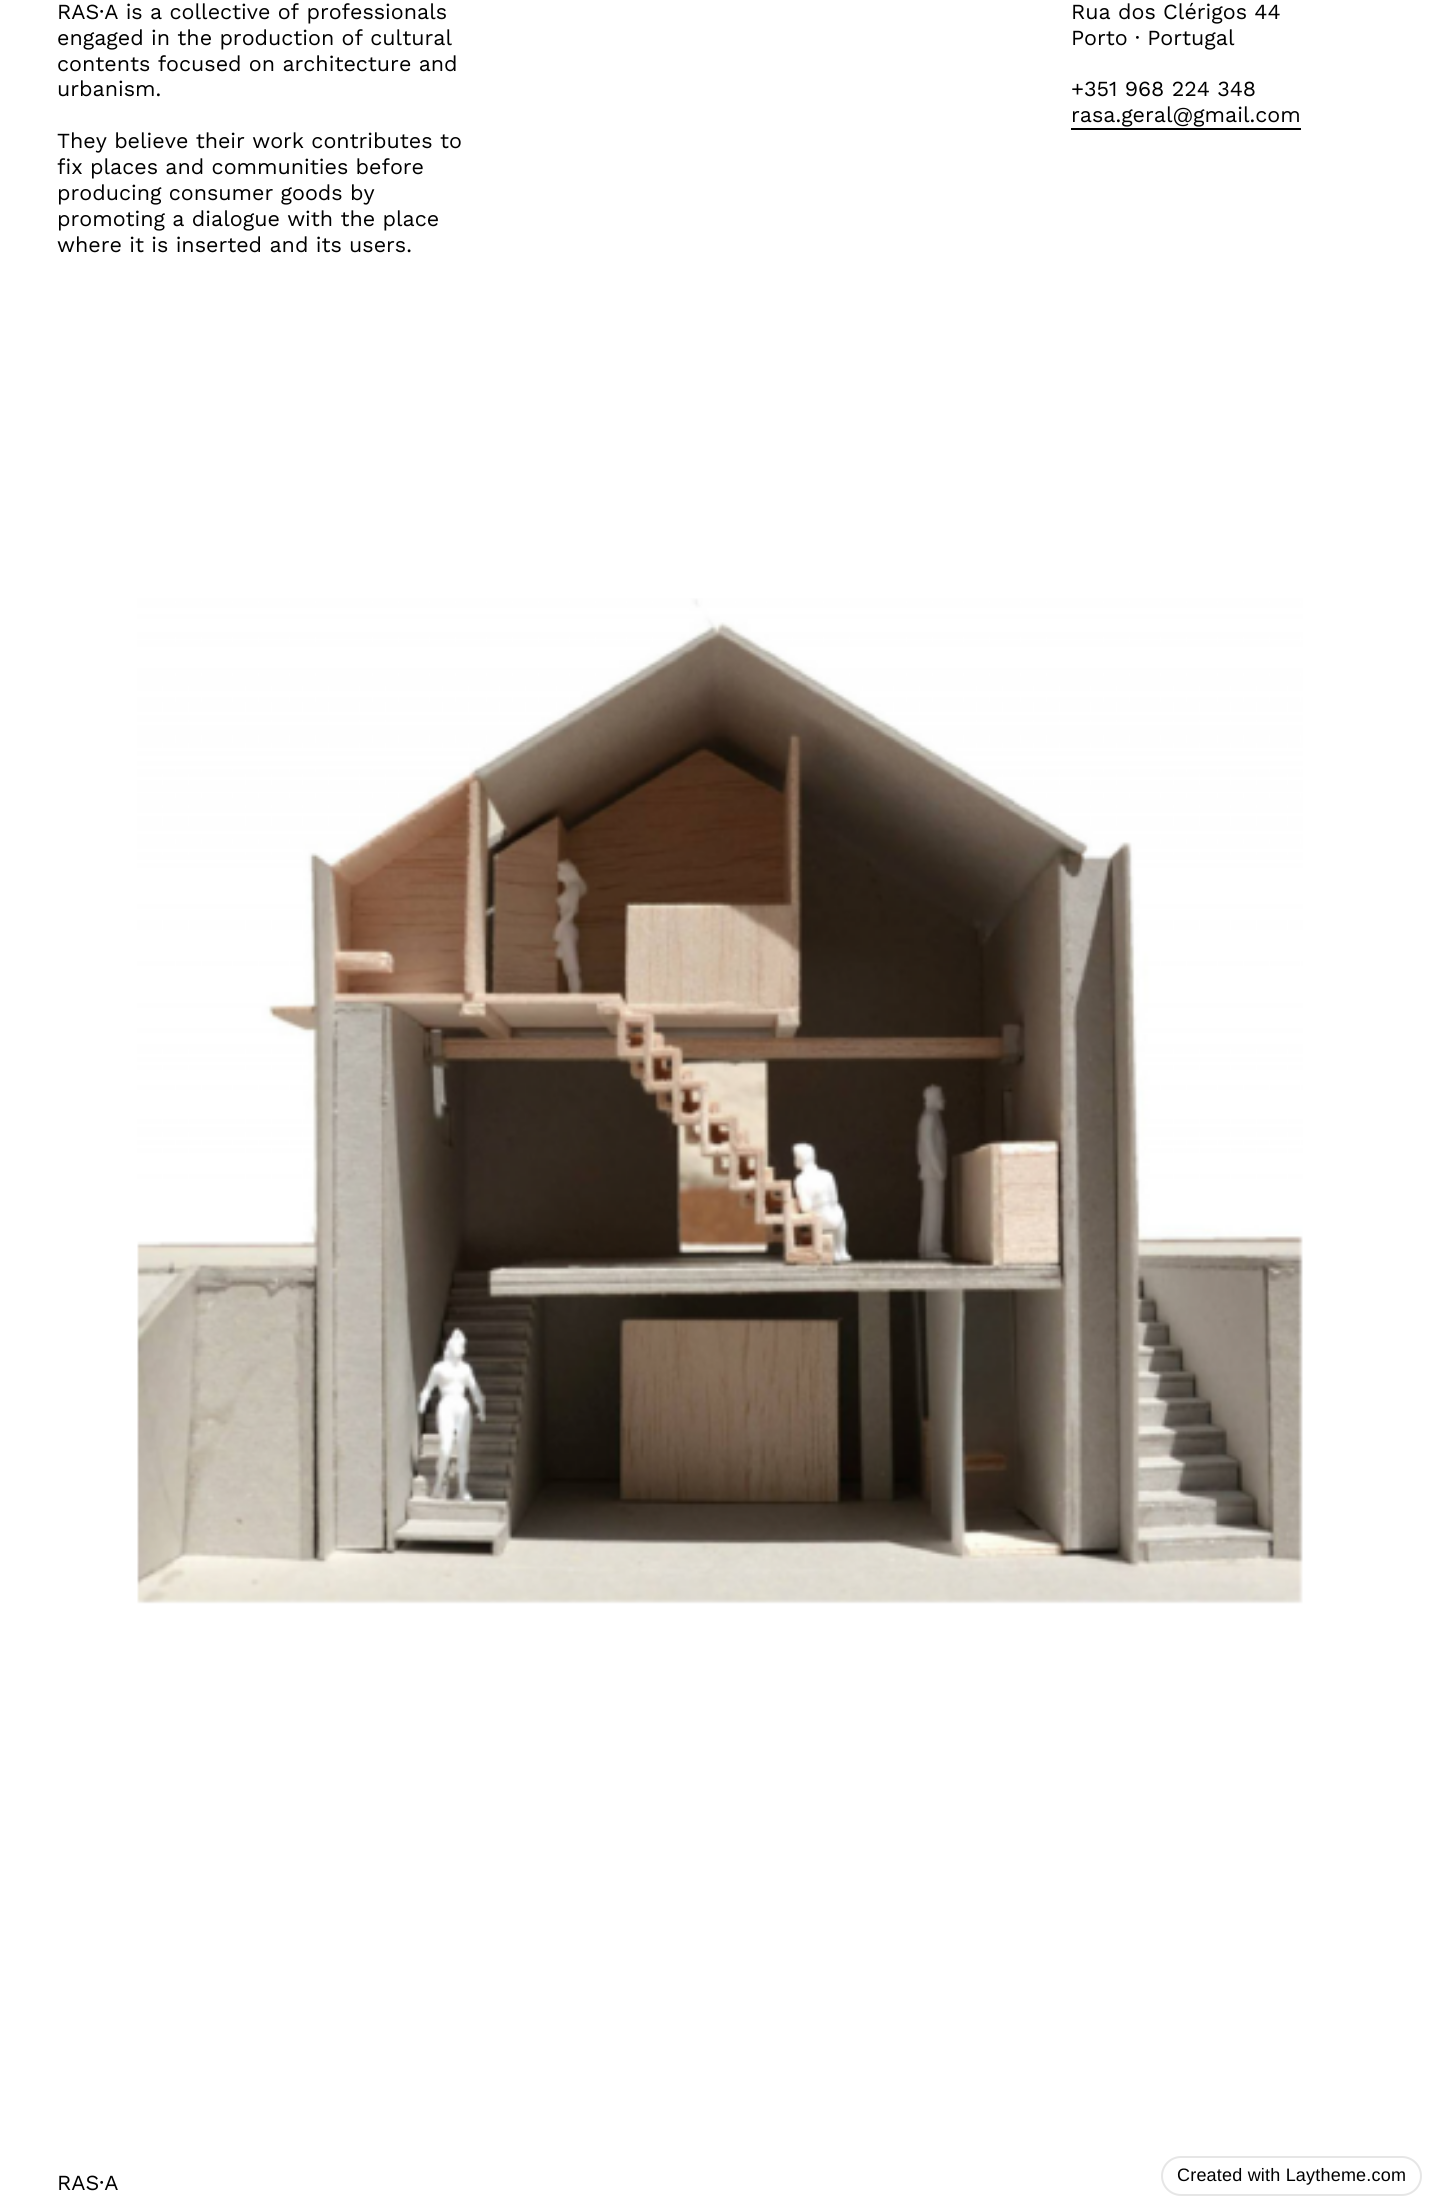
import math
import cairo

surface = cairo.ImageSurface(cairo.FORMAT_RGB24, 1436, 2210)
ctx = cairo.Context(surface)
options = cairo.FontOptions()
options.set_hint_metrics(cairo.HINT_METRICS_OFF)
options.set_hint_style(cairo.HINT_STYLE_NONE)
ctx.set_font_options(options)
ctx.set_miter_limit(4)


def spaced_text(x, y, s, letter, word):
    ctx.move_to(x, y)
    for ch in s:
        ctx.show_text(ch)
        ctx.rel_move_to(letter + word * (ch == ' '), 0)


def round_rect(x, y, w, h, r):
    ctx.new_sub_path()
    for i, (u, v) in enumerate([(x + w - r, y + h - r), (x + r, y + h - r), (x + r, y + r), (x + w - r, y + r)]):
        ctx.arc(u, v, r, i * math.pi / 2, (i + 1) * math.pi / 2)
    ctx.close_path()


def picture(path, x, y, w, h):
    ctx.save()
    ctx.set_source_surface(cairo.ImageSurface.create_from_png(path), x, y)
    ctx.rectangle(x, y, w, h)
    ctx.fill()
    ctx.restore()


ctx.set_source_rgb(1, 1, 1)
ctx.paint()
ctx.select_font_face("Work Sans")
ctx.set_font_size(21.5)
ctx.set_source_rgb(0, 0, 0)
ctx.move_to(57, 19)
ctx.show_text("RAS·A is a collective of professionals")
ctx.move_to(57, 45)
ctx.show_text("engaged in the production of cultural")
ctx.move_to(57, 71)
ctx.show_text("contents focused on architecture and")
ctx.move_to(57, 96)
ctx.show_text("urbanism.")
ctx.move_to(57, 148)
ctx.show_text("They believe their work contributes to")
ctx.move_to(57, 174)
ctx.show_text("fix places and communities before")
ctx.move_to(57, 200)
ctx.show_text("producing consumer goods by")
ctx.move_to(57, 226)
ctx.show_text("promoting a dialogue with the place")
ctx.move_to(57, 252)
ctx.show_text("where it is inserted and its users.")
ctx.move_to(1071, 19)
ctx.show_text("Rua dos Clérigos 44")
ctx.move_to(1071, 45)
ctx.show_text("Porto · Portugal")
ctx.move_to(1071, 96)
ctx.show_text("+351 968 224 348")
ctx.move_to(1071, 122)
ctx.show_text("rasa.geral@gmail.com")
ctx.rectangle(1071, 128, 230, 2)
ctx.fill()
ctx.move_to(57, 2190)
ctx.show_text("RAS·A")
picture("img1.png", 137, 598, 1166, 1006)
round_rect(1162, 2157, 259, 38, 19)
ctx.set_source_rgb(0.902, 0.902, 0.902)
ctx.stroke()
ctx.select_font_face("Liberation Sans")
ctx.set_font_size(18)
ctx.set_source_rgb(0, 0, 0)
spaced_text(1177, 2181, "Created with Laytheme.com", 0.2, 0)
surface.write_to_png("page.png")
